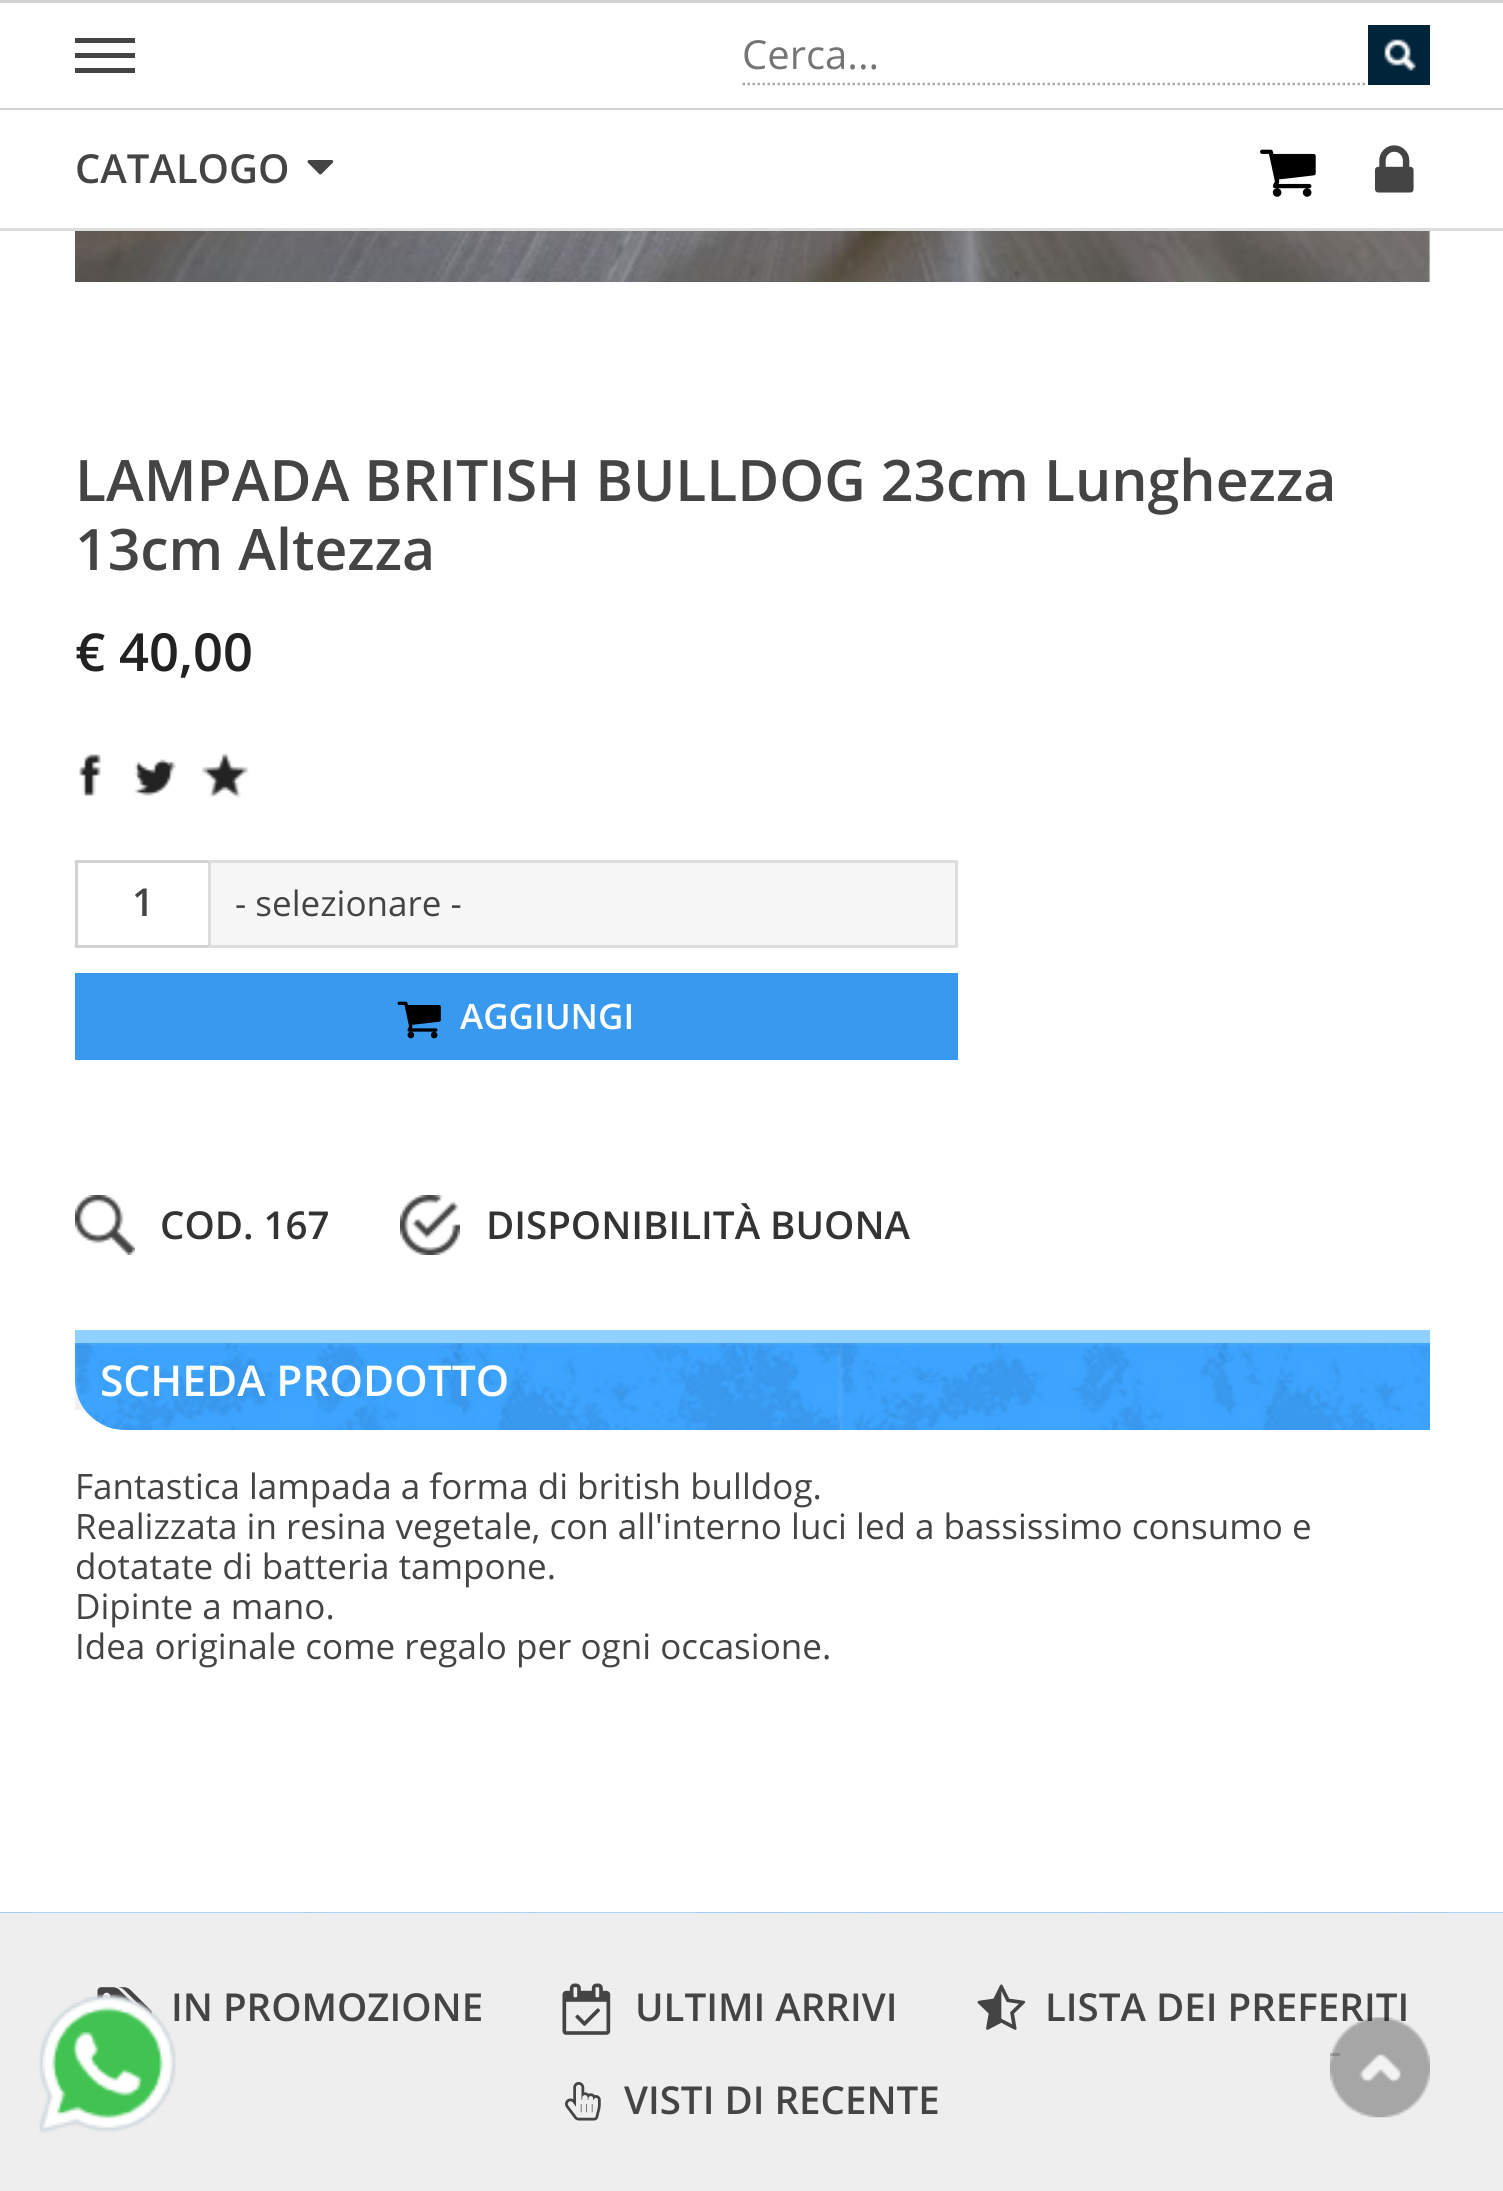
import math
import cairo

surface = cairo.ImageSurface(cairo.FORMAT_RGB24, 1503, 2191)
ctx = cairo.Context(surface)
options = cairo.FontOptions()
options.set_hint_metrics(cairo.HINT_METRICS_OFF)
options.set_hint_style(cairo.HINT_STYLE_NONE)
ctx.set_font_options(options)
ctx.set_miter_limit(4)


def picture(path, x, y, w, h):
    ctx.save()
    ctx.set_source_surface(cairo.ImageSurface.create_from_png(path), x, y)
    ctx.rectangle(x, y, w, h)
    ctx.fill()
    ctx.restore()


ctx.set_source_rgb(1, 1, 1)
ctx.paint()
ctx.set_source_rgb(0.824, 0.824, 0.824)
ctx.rectangle(0, 0, 1503, 3)
ctx.fill()
ctx.rectangle(0, 108, 1503, 2)
ctx.fill()
ctx.set_source_rgb(0.267, 0.267, 0.267)
ctx.rectangle(75, 38, 60, 5)
ctx.fill()
ctx.rectangle(75, 53, 60, 5)
ctx.fill()
ctx.rectangle(75, 68, 60, 5)
ctx.fill()
ctx.new_path()
ctx.move_to(742.5, 84)
ctx.line_to(1367.5, 84)
ctx.set_source_rgb(0.667, 0.667, 0.667)
ctx.set_line_width(2.5)
ctx.set_dash([2.5, 2.5])
ctx.stroke()
ctx.select_font_face("Open Sans")
ctx.set_font_size(40)
ctx.set_source_rgb(0.459, 0.459, 0.459)
ctx.move_to(742, 69)
ctx.show_text("Cerca...")
ctx.set_source_rgb(0, 0.141, 0.227)
ctx.rectangle(1368, 25, 62, 60)
ctx.fill()
picture("img1.png", 1384, 39, 32, 32)
ctx.set_source_rgb(0.867, 0.867, 0.867)
ctx.rectangle(0, 228, 1503, 3)
ctx.fill()
ctx.select_font_face("Open Sans SemiBold")
ctx.set_source_rgb(0.267, 0.267, 0.267)
ctx.move_to(75, 183)
ctx.show_text("CATALOGO")
picture("img2.png", 307, 160, 27, 15)
picture("img3.png", 1260, 149, 56, 48)
picture("img4.png", 1375, 145, 39, 48)
picture("img5.png", 75, 231, 1355, 51)
ctx.set_font_size(57.2)
ctx.move_to(75, 501)
ctx.show_text("LAMPADA BRITISH BULLDOG 23cm Lunghezza")
ctx.move_to(75, 570)
ctx.show_text("13cm Altezza")
ctx.set_font_size(52.5)
ctx.set_source_rgb(0.133, 0.133, 0.133)
ctx.move_to(75, 671)
ctx.show_text("€ 40,00")
picture("img6.png", 79, 754, 22, 42)
picture("img7.png", 134, 759, 42, 37)
picture("img8.png", 202, 752, 47, 46)
ctx.set_source_rgb(0.827, 0.827, 0.827)
ctx.rectangle(75, 860, 133, 3)
ctx.fill()
ctx.rectangle(75, 945, 133, 3)
ctx.fill()
ctx.rectangle(75, 860, 3, 88)
ctx.fill()
ctx.set_font_size(38.5)
ctx.set_source_rgb(0.267, 0.267, 0.267)
ctx.move_to(132, 916)
ctx.show_text("1")
ctx.set_source_rgb(0.965, 0.965, 0.965)
ctx.rectangle(209.5, 861.5, 747, 85)
ctx.fill_preserve()
ctx.set_source_rgb(0.867, 0.867, 0.867)
ctx.set_line_width(3)
ctx.set_dash([])
ctx.stroke()
ctx.select_font_face("Open Sans")
ctx.set_font_size(35)
ctx.set_source_rgb(0.267, 0.267, 0.267)
ctx.move_to(235, 916)
ctx.show_text("- selezionare -")
ctx.set_source_rgb(0.224, 0.6, 0.937)
ctx.rectangle(75, 973, 883, 87)
ctx.fill()
picture("img9.png", 397, 1001, 44, 38)
ctx.select_font_face("Open Sans SemiBold")
ctx.set_source_rgb(1, 1, 1)
ctx.move_to(460, 1029)
ctx.show_text("AGGIUNGI")
picture("img10.png", 75, 1195, 60, 60)
ctx.set_font_size(38.5)
ctx.set_source_rgb(0.2, 0.2, 0.2)
ctx.move_to(160, 1239)
ctx.show_text("COD. 167")
picture("img11.png", 400, 1195, 60, 60)
ctx.move_to(486, 1239)
ctx.show_text("DISPONIBILITÀ BUONA")
ctx.set_source_rgb(0.945, 0.945, 0.945)
ctx.rectangle(75, 1380, 10, 30)
ctx.fill()
picture("img12.png", 75, 1343, 1355, 87)
ctx.set_source_rgb(0.561, 0.816, 1)
ctx.rectangle(75, 1330, 1355, 13)
ctx.fill()
ctx.set_font_size(42.5)
ctx.set_source_rgb(1, 1, 1)
ctx.move_to(100, 1396)
ctx.show_text("SCHEDA PRODOTTO")
ctx.select_font_face("Open Sans")
ctx.set_font_size(35)
ctx.set_source_rgb(0.267, 0.267, 0.267)
ctx.move_to(75, 1499)
ctx.show_text("Fantastica lampada a forma di british bulldog.")
ctx.move_to(75, 1539)
ctx.show_text("Realizzata in resina vegetale, con all'interno luci led a bassissimo consumo e")
ctx.move_to(75, 1579)
ctx.show_text("dotatate di batteria tampone.")
ctx.move_to(75, 1619)
ctx.show_text("Dipinte a mano.")
ctx.move_to(75, 1659)
ctx.show_text("Idea originale come regalo per ogni occasione.")
ctx.set_source_rgb(0.933, 0.933, 0.933)
ctx.rectangle(0, 1913, 1503, 278)
ctx.fill()
picture("img15.png", 97, 1987, 55, 29)
ctx.select_font_face("Open Sans SemiBold")
ctx.set_font_size(38.5)
ctx.set_source_rgb(0.267, 0.267, 0.267)
ctx.move_to(171, 2021)
ctx.show_text("IN PROMOZIONE")
picture("img13.png", 39, 1994, 137, 139)
picture("img14.png", 0, 1912, 1503, 1)
picture("img16.png", 562, 1983, 49, 52)
ctx.move_to(635, 2021)
ctx.show_text("ULTIMI ARRIVI")
picture("img17.png", 977, 1984, 49, 46)
ctx.move_to(1045, 2021)
ctx.show_text("LISTA DEI PREFERITI")
picture("img18.png", 565, 2082, 36, 39)
ctx.move_to(624, 2114)
ctx.show_text("VISTI DI RECENTE")
picture("img19.png", 1330, 2017, 100, 101)
ctx.set_source_rgba(0.267, 0.267, 0.267, 0.3)
ctx.rectangle(1330, 2053, 10, 3)
ctx.fill()
surface.write_to_png("page.png")
